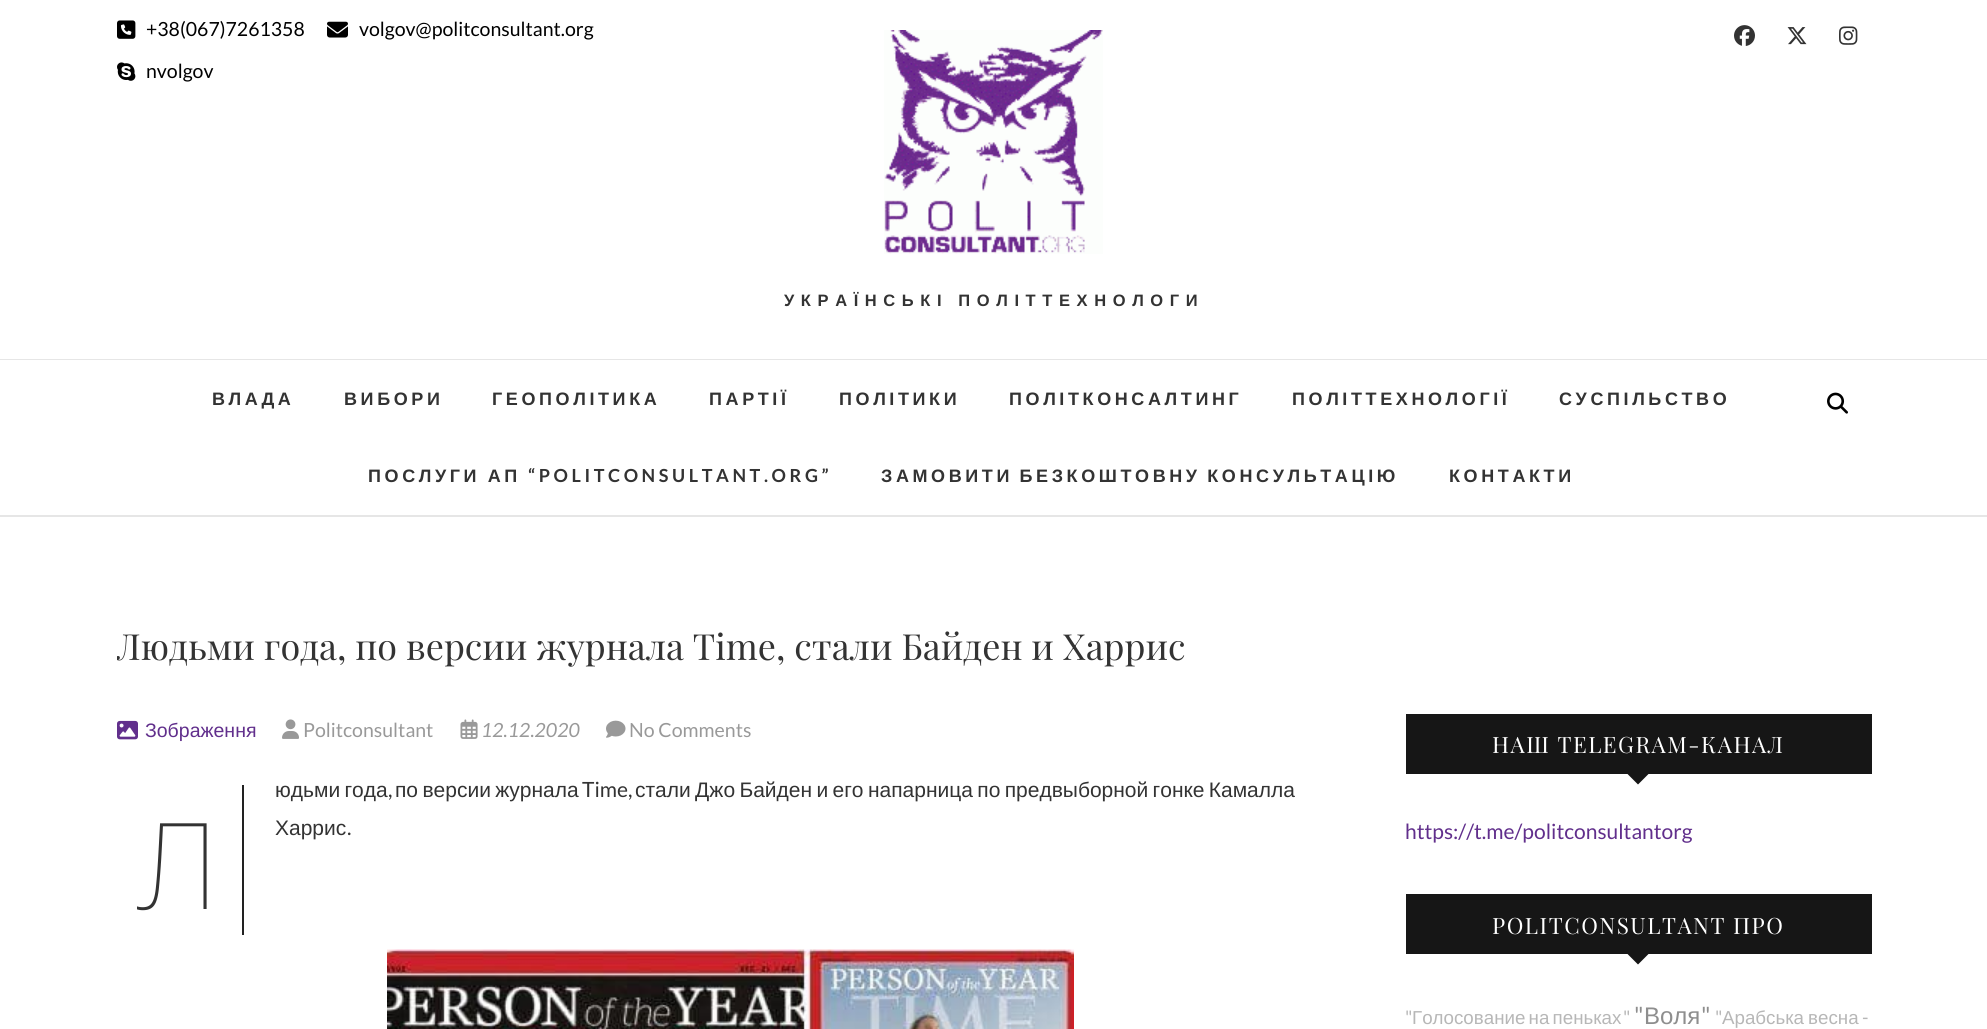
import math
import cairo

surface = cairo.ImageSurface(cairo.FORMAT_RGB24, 1987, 1029)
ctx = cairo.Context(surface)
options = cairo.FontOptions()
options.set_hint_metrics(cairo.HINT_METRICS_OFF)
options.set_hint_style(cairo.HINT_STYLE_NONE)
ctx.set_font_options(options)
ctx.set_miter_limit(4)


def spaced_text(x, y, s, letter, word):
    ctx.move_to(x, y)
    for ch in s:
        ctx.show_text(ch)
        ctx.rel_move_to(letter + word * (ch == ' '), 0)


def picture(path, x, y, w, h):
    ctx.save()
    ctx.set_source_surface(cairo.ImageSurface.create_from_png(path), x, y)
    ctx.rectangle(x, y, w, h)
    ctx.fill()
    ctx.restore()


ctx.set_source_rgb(1, 1, 1)
ctx.paint()
ctx.set_source_rgb(0.902, 0.902, 0.902)
ctx.rectangle(0, 359, 1987, 1)
ctx.fill()
picture("img1.png", 117, 20, 19, 19)
ctx.select_font_face("Lato")
ctx.set_font_size(19.5)
ctx.set_source_rgb(0, 0, 0)
ctx.move_to(146, 36)
ctx.show_text("+38(067)7261358")
picture("img2.png", 327, 21, 21, 17)
ctx.move_to(359, 36)
ctx.show_text("volgov@politconsultant.org")
picture("img3.png", 117, 62, 19, 19)
ctx.move_to(146, 78)
ctx.show_text("nvolgov")
picture("img4.png", 1734, 25, 21, 21)
picture("img5.png", 1787, 27, 20, 18)
picture("img6.png", 1839, 26, 19, 19)
picture("img7.png", 884, 30, 219, 224)
ctx.select_font_face("Liberation Sans", cairo.FONT_SLANT_NORMAL, cairo.FONT_WEIGHT_BOLD)
ctx.set_font_size(16.5)
ctx.set_source_rgb(0.2, 0.2, 0.2)
spaced_text(784, 306, "УКРАЇНСЬКІ ПОЛІТТЕХНОЛОГИ", 6.6, -1)
ctx.set_source_rgb(0.902, 0.902, 0.902)
ctx.rectangle(0, 515, 1987, 2)
ctx.fill()
ctx.set_font_size(18)
ctx.set_source_rgb(0.2, 0.2, 0.2)
spaced_text(212, 405, "ВЛАДА", 3.6, 0)
spaced_text(344, 405, "ВИБОРИ", 3.6, 0)
spaced_text(492, 405, "ГЕОПОЛІТИКА", 3.6, 0)
spaced_text(709, 405, "ПАРТІЇ", 3.6, 0)
spaced_text(839, 405, "ПОЛІТИКИ", 3.6, 0)
spaced_text(1009, 405, "ПОЛІТКОНСАЛТИНГ", 3.6, 0)
spaced_text(1292, 405, "ПОЛІТТЕХНОЛОГІЇ", 3.6, 0)
spaced_text(1559, 405, "СУСПІЛЬСТВО", 3.6, 0)
spaced_text(368, 482, "ПОСЛУГИ АП", 3.6, -1)
ctx.select_font_face("Lato", cairo.FONT_SLANT_NORMAL, cairo.FONT_WEIGHT_BOLD)
spaced_text(528, 482, "“POLITCONSULTANT.ORG”", 3.6, 0)
ctx.select_font_face("Liberation Sans", cairo.FONT_SLANT_NORMAL, cairo.FONT_WEIGHT_BOLD)
spaced_text(881, 482, "ЗАМОВИТИ БЕЗКОШТОВНУ КОНСУЛЬТАЦІЮ", 3.6, -2)
spaced_text(1449, 482, "КОНТАКТИ", 3.6, 0)
picture("img8.png", 1827, 392, 21, 22)
ctx.save()
ctx.rectangle(117, 621, 1755, 93)
ctx.clip()
ctx.select_font_face("Playfair Display")
ctx.set_font_size(36)
ctx.move_to(116, 660)
ctx.show_text("Людьми года, по версии журнала Time, стали Байден и Харрис")
ctx.restore()
picture("img9.png", 117, 720, 21, 20)
ctx.select_font_face("Liberation Sans")
ctx.set_font_size(19.5)
ctx.set_source_rgb(0.38, 0.184, 0.549)
ctx.move_to(145, 737)
ctx.show_text("Зображення")
picture("img10.png", 282, 719, 17, 20)
ctx.select_font_face("Lato")
ctx.set_source_rgb(0.6, 0.6, 0.6)
ctx.move_to(303, 737)
ctx.show_text("Politconsultant")
picture("img11.png", 460, 719, 18, 20)
ctx.select_font_face("Lato", cairo.FONT_SLANT_ITALIC)
ctx.move_to(481, 737)
ctx.show_text("12.12.2020")
picture("img12.png", 606, 720, 20, 18)
ctx.select_font_face("Lato")
ctx.move_to(629, 737)
ctx.show_text("No Comments")
ctx.select_font_face("Liberation Sans")
ctx.set_font_size(21)
ctx.set_source_rgb(0.2, 0.2, 0.2)
spaced_text(275, 797, "юдьми года", 0, -1.5)
ctx.select_font_face("Lato")
ctx.move_to(388, 797)
ctx.show_text(",")
ctx.select_font_face("Liberation Sans")
spaced_text(395, 797, "по версии журнала", 0, -1.5)
ctx.select_font_face("Lato")
ctx.move_to(582, 797)
ctx.show_text("Time,")
ctx.select_font_face("Liberation Sans")
spaced_text(635, 797, "стали Джо Байден и его напарница по предвыборной гонке Камалла", 0, -1.5)
ctx.set_source_rgb(0.133, 0.133, 0.133)
ctx.rectangle(242, 785, 2, 150)
ctx.fill()
ctx.select_font_face("Noto Sans Thin")
ctx.set_font_size(120)
ctx.set_source_rgb(0.2, 0.2, 0.2)
ctx.move_to(137, 909)
ctx.show_text("Л")
ctx.select_font_face("Liberation Sans")
ctx.set_font_size(21)
ctx.move_to(275, 835)
ctx.show_text("Харрис")
ctx.select_font_face("Lato")
ctx.move_to(347, 835)
ctx.show_text(".")
picture("img13.png", 387, 949, 687, 80)
ctx.set_source_rgb(0.086, 0.086, 0.086)
ctx.rectangle(1406, 714, 466, 60)
ctx.fill()
ctx.select_font_face("Playfair Display")
ctx.set_font_size(22.5)
ctx.set_source_rgb(1, 1, 1)
spaced_text(1492, 753, "НАШ TELEGRAM-КАНАЛ", 1.5, 0)
ctx.set_source_rgb(0.086, 0.086, 0.086)
ctx.new_path()
ctx.move_to(1627.5, 774)
ctx.line_to(1648.5, 774)
ctx.line_to(1638, 784.5)
ctx.close_path()
ctx.fill()
ctx.select_font_face("Lato")
ctx.set_font_size(21)
ctx.set_source_rgb(0.38, 0.184, 0.549)
ctx.move_to(1405, 839)
ctx.show_text("https://t.me/politconsultantorg")
ctx.set_source_rgb(0.086, 0.086, 0.086)
ctx.rectangle(1406, 894, 466, 60)
ctx.fill()
ctx.select_font_face("Playfair Display")
ctx.set_font_size(22.5)
ctx.set_source_rgb(1, 1, 1)
spaced_text(1492, 934, "POLITCONSULTANT ПРО", 1.5, 0)
ctx.set_source_rgb(0.086, 0.086, 0.086)
ctx.new_path()
ctx.move_to(1627.5, 954)
ctx.line_to(1648.5, 954)
ctx.line_to(1638, 964.5)
ctx.close_path()
ctx.fill()
ctx.select_font_face("Lato")
ctx.set_font_size(18.75)
ctx.set_source_rgb(0.718, 0.718, 0.718)
ctx.move_to(1405, 1024)
ctx.show_text("\"")
ctx.select_font_face("Liberation Sans")
spaced_text(1412, 1024, "Голосование на пеньках", 0, -2)
ctx.select_font_face("Lato")
ctx.move_to(1623, 1024)
ctx.show_text("\"")
ctx.set_font_size(24)
ctx.set_source_rgb(0.557, 0.557, 0.557)
ctx.move_to(1634, 1024)
ctx.show_text("\"")
ctx.select_font_face("Liberation Sans")
ctx.move_to(1644, 1024)
ctx.show_text("Воля")
ctx.select_font_face("Lato")
ctx.move_to(1701, 1024)
ctx.show_text("\"")
ctx.set_font_size(18.75)
ctx.set_source_rgb(0.718, 0.718, 0.718)
ctx.move_to(1715, 1024)
ctx.show_text("\"")
ctx.select_font_face("Liberation Sans")
spaced_text(1722, 1024, "Арабська весна", 0, -1)
ctx.select_font_face("Lato")
ctx.move_to(1862, 1024)
ctx.show_text("-")
surface.write_to_png("page.png")
